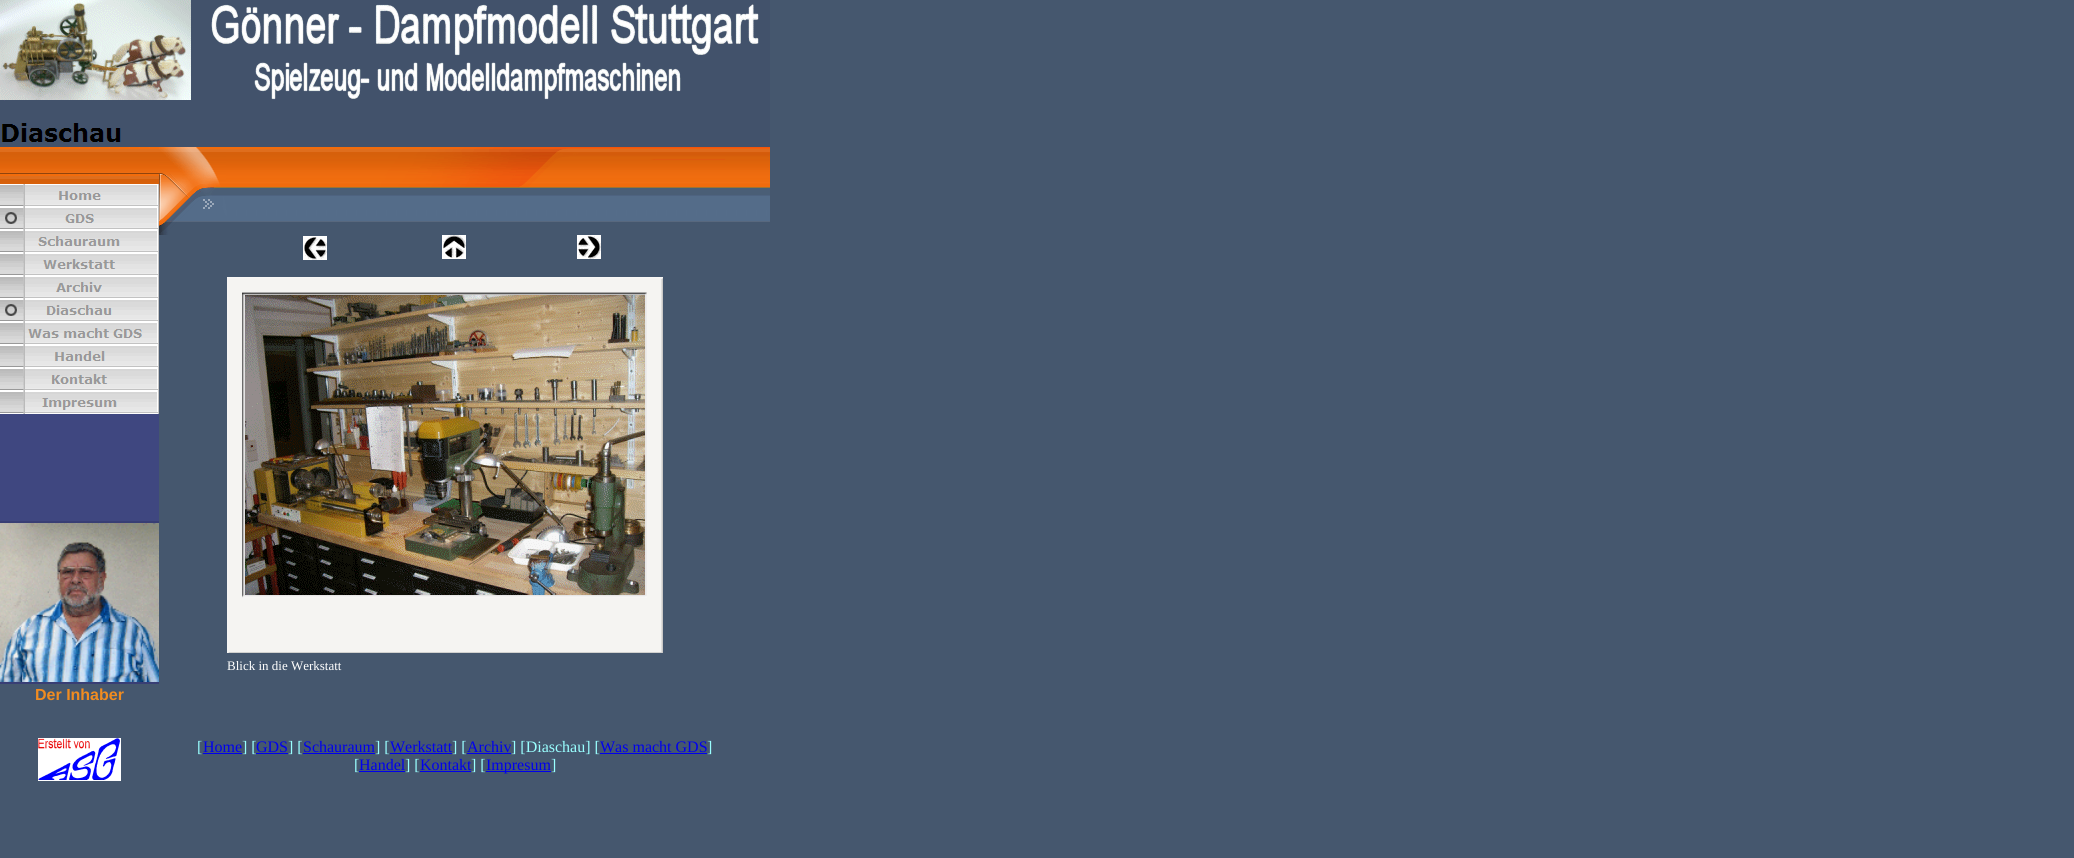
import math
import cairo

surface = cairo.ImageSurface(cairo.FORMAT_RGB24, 2074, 858)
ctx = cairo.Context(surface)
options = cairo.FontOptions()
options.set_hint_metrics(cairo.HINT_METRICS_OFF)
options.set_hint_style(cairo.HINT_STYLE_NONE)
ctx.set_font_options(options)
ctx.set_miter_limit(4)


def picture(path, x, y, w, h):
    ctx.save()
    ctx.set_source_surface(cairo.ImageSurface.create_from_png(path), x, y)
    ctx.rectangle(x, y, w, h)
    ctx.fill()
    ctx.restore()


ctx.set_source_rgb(0.271, 0.341, 0.431)
ctx.paint()
picture("img1.png", 0, 0, 770, 147)
picture("img2.png", 0, 147, 159, 37)
ctx.set_source_rgb(0.247, 0.278, 0.502)
ctx.rectangle(0, 414, 159, 107)
ctx.fill()
picture("img3.png", 0, 184, 159, 23)
picture("img4.png", 0, 207, 159, 23)
picture("img5.png", 0, 230, 159, 23)
picture("img6.png", 0, 253, 159, 23)
picture("img7.png", 0, 276, 159, 23)
picture("img8.png", 0, 299, 159, 23)
picture("img9.png", 0, 322, 159, 23)
picture("img10.png", 0, 345, 159, 23)
picture("img11.png", 0, 368, 159, 23)
picture("img12.png", 0, 391, 159, 23)
ctx.set_source_rgb(0.22, 0.243, 0.455)
ctx.rectangle(0, 521, 159, 163)
ctx.fill()
picture("img13.png", 0, 523, 159, 159)
ctx.select_font_face("Liberation Sans", cairo.FONT_SLANT_NORMAL, cairo.FONT_WEIGHT_BOLD)
ctx.set_font_size(16)
ctx.set_source_rgb(0.945, 0.549, 0.125)
ctx.move_to(35, 700)
ctx.show_text("Der Inhaber")
picture("img14.png", 38, 738, 83, 43)
picture("img15.png", 159, 147, 67, 41)
picture("img16.png", 226, 147, 544, 41)
picture("img17.png", 159, 188, 67, 47)
picture("img18.png", 226, 188, 544, 34)
picture("img19.png", 303, 236, 24, 24)
picture("img20.png", 442, 235, 24, 24)
picture("img21.png", 577, 235, 24, 24)
picture("img22.png", 227, 277, 18, 18)
picture("img23.png", 245, 277, 400, 18)
picture("img24.png", 645, 277, 18, 18)
picture("img25.png", 227, 295, 18, 300)
picture("img26.png", 245, 295, 400, 300)
picture("img27.png", 645, 295, 18, 300)
picture("img28.png", 227, 595, 18, 58)
picture("img29.png", 245, 595, 400, 58)
picture("img30.png", 645, 595, 18, 58)
ctx.select_font_face("Liberation Serif")
ctx.set_font_size(13)
ctx.set_source_rgb(1, 1, 1)
ctx.move_to(227, 670)
ctx.show_text("Blick in die Werkstatt")
ctx.set_font_size(16)
ctx.set_source_rgb(0.6, 1, 1)
ctx.move_to(197, 752)
ctx.show_text("[")
ctx.set_source_rgb(0, 0, 0.933)
ctx.move_to(203, 752)
ctx.show_text("Home")
ctx.rectangle(203, 753, 39, 1)
ctx.fill()
ctx.set_source_rgb(0.6, 1, 1)
ctx.move_to(242, 752)
ctx.show_text("] [")
ctx.set_source_rgb(0, 0, 0.933)
ctx.move_to(256, 752)
ctx.show_text("GDS")
ctx.rectangle(256, 753, 32, 1)
ctx.fill()
ctx.set_source_rgb(0.6, 1, 1)
ctx.move_to(288, 752)
ctx.show_text("] [")
ctx.set_source_rgb(0, 0, 0.933)
ctx.move_to(303, 752)
ctx.show_text("Schauraum")
ctx.rectangle(303, 753, 72, 1)
ctx.fill()
ctx.set_source_rgb(0.6, 1, 1)
ctx.move_to(375, 752)
ctx.show_text("] [")
ctx.set_source_rgb(0, 0, 0.933)
ctx.move_to(390, 752)
ctx.show_text("Werkstatt")
ctx.rectangle(390, 753, 62, 1)
ctx.fill()
ctx.set_source_rgb(0.6, 1, 1)
ctx.move_to(452, 752)
ctx.show_text("] [")
ctx.set_source_rgb(0, 0, 0.933)
ctx.move_to(467, 752)
ctx.show_text("Archiv")
ctx.rectangle(467, 753, 44, 1)
ctx.fill()
ctx.set_source_rgb(0.6, 1, 1)
ctx.move_to(511, 752)
ctx.show_text("] [Diaschau] [")
ctx.set_source_rgb(0, 0, 0.933)
ctx.move_to(600, 752)
ctx.show_text("Was macht GDS")
ctx.rectangle(600, 753, 107, 1)
ctx.fill()
ctx.set_source_rgb(0.6, 1, 1)
ctx.move_to(707, 752)
ctx.show_text("]")
ctx.move_to(354, 770)
ctx.show_text("[")
ctx.set_source_rgb(0, 0, 0.933)
ctx.move_to(359, 770)
ctx.show_text("Handel")
ctx.rectangle(359, 771, 46, 1)
ctx.fill()
ctx.set_source_rgb(0.6, 1, 1)
ctx.move_to(405, 770)
ctx.show_text("] [")
ctx.set_source_rgb(0, 0, 0.933)
ctx.move_to(420, 770)
ctx.show_text("Kontakt")
ctx.rectangle(420, 771, 51, 1)
ctx.fill()
ctx.set_source_rgb(0.6, 1, 1)
ctx.move_to(471, 770)
ctx.show_text("] [")
ctx.set_source_rgb(0, 0, 0.933)
ctx.rectangle(486, 771, 65, 1)
ctx.fill()
ctx.move_to(486, 770)
ctx.show_text("Impresum")
ctx.set_source_rgb(0.6, 1, 1)
ctx.move_to(551, 770)
ctx.show_text("]")
surface.write_to_png("page.png")
